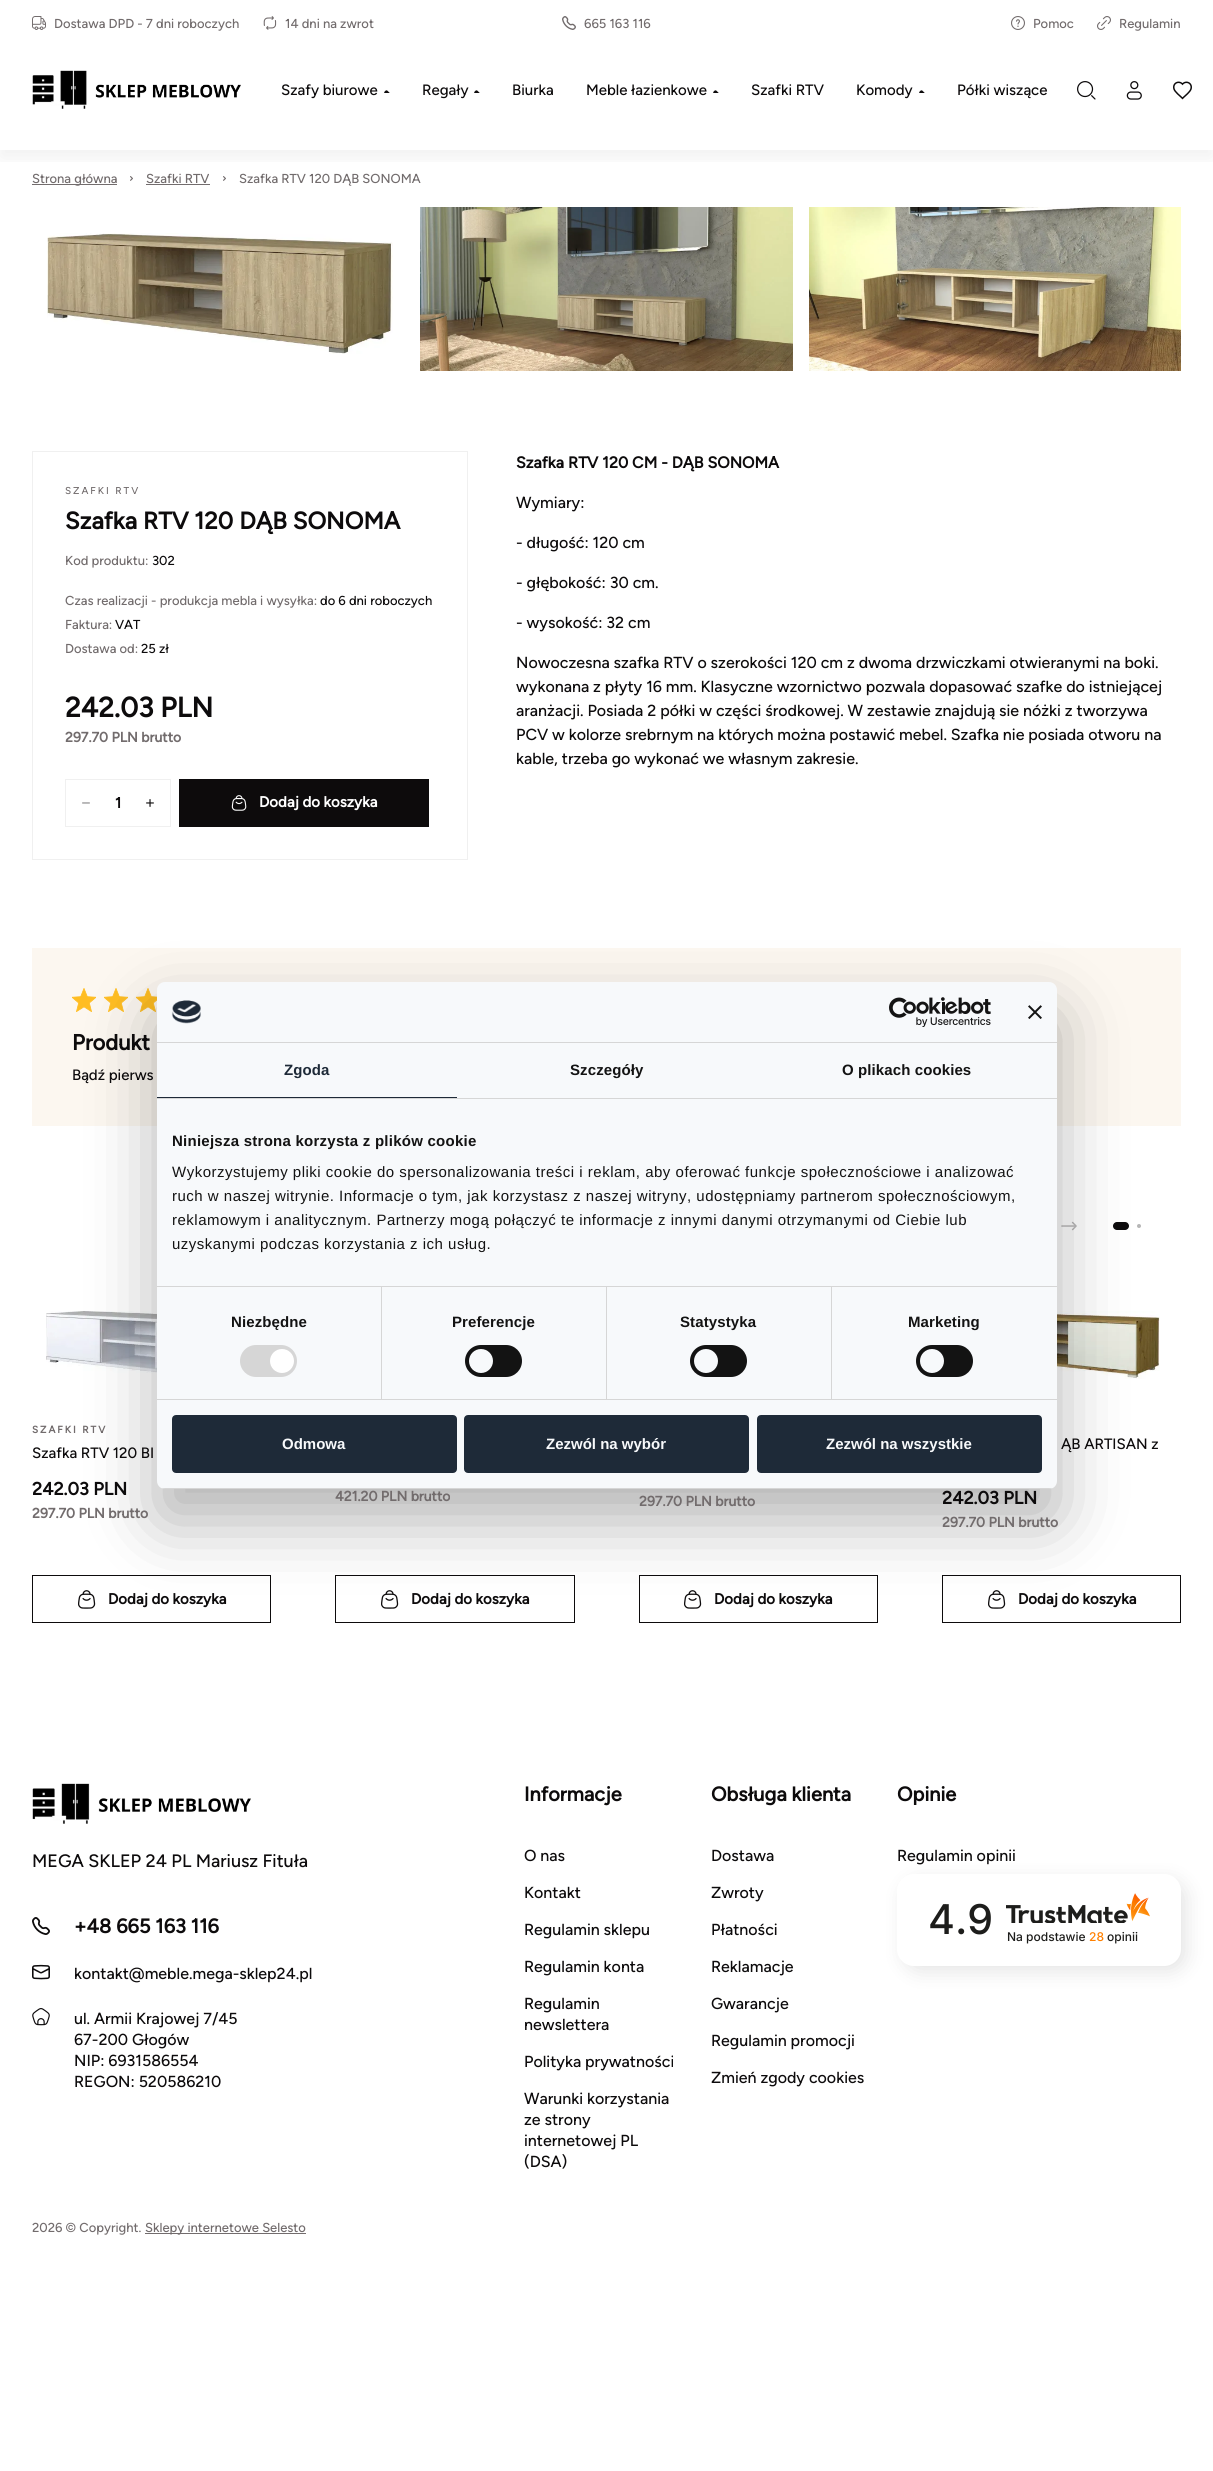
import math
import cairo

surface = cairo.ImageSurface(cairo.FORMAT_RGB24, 1213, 2471)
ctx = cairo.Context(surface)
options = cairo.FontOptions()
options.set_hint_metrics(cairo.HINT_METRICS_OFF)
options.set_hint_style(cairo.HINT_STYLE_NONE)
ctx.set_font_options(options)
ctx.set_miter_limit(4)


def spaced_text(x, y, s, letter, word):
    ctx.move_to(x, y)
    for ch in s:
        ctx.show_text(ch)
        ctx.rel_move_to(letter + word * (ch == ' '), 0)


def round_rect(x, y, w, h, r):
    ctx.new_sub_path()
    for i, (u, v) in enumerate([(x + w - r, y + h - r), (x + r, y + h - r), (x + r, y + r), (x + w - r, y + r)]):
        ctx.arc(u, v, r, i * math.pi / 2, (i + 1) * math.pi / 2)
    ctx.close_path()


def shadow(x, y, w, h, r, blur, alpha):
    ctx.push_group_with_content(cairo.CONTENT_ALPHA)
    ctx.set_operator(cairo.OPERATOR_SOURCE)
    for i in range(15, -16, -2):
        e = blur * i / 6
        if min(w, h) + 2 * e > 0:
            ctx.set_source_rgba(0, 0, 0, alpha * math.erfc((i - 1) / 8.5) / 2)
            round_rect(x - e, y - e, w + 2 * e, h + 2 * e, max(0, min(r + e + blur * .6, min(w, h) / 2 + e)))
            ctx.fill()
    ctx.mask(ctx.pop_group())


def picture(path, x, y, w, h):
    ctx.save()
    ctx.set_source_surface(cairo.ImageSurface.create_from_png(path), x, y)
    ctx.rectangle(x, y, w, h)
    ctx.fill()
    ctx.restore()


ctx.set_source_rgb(1, 1, 1)
ctx.paint()
ctx.set_source_rgb(0.447, 0.424, 0.427)
ctx.rectangle(32, 184, 85, 1)
ctx.fill()
picture("img11.png", 130, 176, 3, 5)
ctx.rectangle(146, 184, 64, 1)
ctx.fill()
picture("img11.png", 223, 176, 3, 5)
ctx.save()
ctx.rectangle(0, 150, 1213, 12)
ctx.clip()
ctx.set_source_rgb(0, 0, 0)
shadow(0, 8, 1213, 150, 0, 10, 0.06)
ctx.restore()
picture("img1.png", 32, 16, 14, 14)
ctx.select_font_face("Figtree Light")
ctx.set_font_size(13)
ctx.move_to(54, 28)
ctx.show_text("Dostawa DPD - 7 dni roboczych")
picture("img2.png", 263, 16, 14, 14)
ctx.move_to(285, 28)
ctx.show_text("14 dni na zwrot")
picture("img3.png", 562, 16, 14, 14)
ctx.move_to(584, 28)
ctx.show_text("665 163 116")
picture("img4.png", 1011, 16, 14, 14)
ctx.move_to(1033, 28)
ctx.show_text("Pomoc")
picture("img5.png", 1097, 16, 14, 14)
ctx.move_to(1119, 28)
ctx.show_text("Regulamin")
picture("img6.png", 32, 70, 209, 39)
ctx.set_font_size(15)
ctx.set_source_rgb(0.051, 0.043, 0.047)
ctx.move_to(281, 95)
ctx.show_text("Szafy biurowe")
picture("img7.png", 384, 90, 6, 3)
ctx.move_to(422, 95)
ctx.show_text("Regały")
picture("img7.png", 474, 90, 6, 3)
ctx.move_to(512, 95)
ctx.show_text("Biurka")
ctx.move_to(586, 95)
ctx.show_text("Meble łazienkowe")
picture("img7.png", 713, 90, 6, 3)
ctx.move_to(751, 95)
ctx.show_text("Szafki RTV")
ctx.move_to(856, 95)
ctx.show_text("Komody")
picture("img7.png", 919, 90, 6, 3)
ctx.move_to(957, 95)
ctx.show_text("Półki wiszące")
picture("img8.png", 1077, 81, 19, 19)
picture("img9.png", 1126, 81, 16, 19)
picture("img10.png", 1173, 81, 19, 19)
ctx.set_font_size(13)
ctx.set_source_rgb(0.447, 0.424, 0.427)
ctx.move_to(32, 183)
ctx.show_text("Strona główna")
ctx.move_to(146, 183)
ctx.show_text("Szafki RTV")
ctx.move_to(239, 183)
ctx.show_text("Szafka RTV 120 DĄB SONOMA")
picture("img12.png", 47, 233, 346, 121)
picture("img13.png", 420, 207, 373, 164)
picture("img14.png", 809, 207, 372, 164)
ctx.rectangle(32.5, 451.5, 435, 408)
ctx.set_source_rgb(0.941, 0.941, 0.941)
ctx.set_line_width(1)
ctx.stroke()
ctx.set_font_size(10)
ctx.set_source_rgb(0.447, 0.424, 0.427)
spaced_text(65, 494, "SZAFKI RTV", 2, 0)
ctx.select_font_face("Figtree", cairo.FONT_SLANT_NORMAL, cairo.FONT_WEIGHT_BOLD)
ctx.set_font_size(24)
ctx.set_source_rgb(0.051, 0.043, 0.047)
ctx.move_to(65, 529)
ctx.show_text("Szafka RTV 120 DĄB SONOMA")
ctx.select_font_face("Figtree Light")
ctx.set_font_size(13)
ctx.set_source_rgb(0.447, 0.424, 0.427)
ctx.move_to(65, 565)
ctx.show_text("Kod produktu:")
ctx.set_source_rgb(0.051, 0.043, 0.047)
ctx.move_to(152, 565)
ctx.show_text("302")
ctx.set_source_rgb(0.447, 0.424, 0.427)
ctx.move_to(65, 605)
ctx.show_text("Czas realizacji - produkcja mebla i wysyłka:")
ctx.set_source_rgb(0.051, 0.043, 0.047)
ctx.move_to(320, 605)
ctx.show_text("do 6 dni roboczych")
ctx.set_source_rgb(0.447, 0.424, 0.427)
ctx.move_to(65, 629)
ctx.show_text("Faktura:")
ctx.set_source_rgb(0.051, 0.043, 0.047)
ctx.move_to(115, 629)
ctx.show_text("VAT")
ctx.set_source_rgb(0.447, 0.424, 0.427)
ctx.move_to(65, 653)
ctx.show_text("Dostawa od:")
ctx.set_source_rgb(0.051, 0.043, 0.047)
ctx.move_to(141, 653)
ctx.show_text("25 zł")
ctx.select_font_face("Figtree", cairo.FONT_SLANT_NORMAL, cairo.FONT_WEIGHT_BOLD)
ctx.set_font_size(28)
ctx.move_to(65, 717)
ctx.show_text("242.03 PLN")
ctx.set_font_size(14)
ctx.set_source_rgb(0.447, 0.424, 0.427)
ctx.move_to(65, 742)
ctx.show_text("297.70 PLN brutto")
ctx.rectangle(65.5, 779.5, 105, 47)
ctx.set_source_rgb(0.941, 0.941, 0.941)
ctx.stroke()
picture("img15.png", 82, 802, 8, 2)
ctx.set_font_size(15)
ctx.set_source_rgb(0.051, 0.043, 0.047)
ctx.move_to(115, 808)
ctx.show_text("1")
picture("img16.png", 146, 799, 8, 8)
ctx.rectangle(179, 779, 250, 48)
ctx.fill()
picture("img17.png", 231, 795, 16, 16)
ctx.set_source_rgb(1, 1, 1)
ctx.move_to(259, 807)
ctx.show_text("Dodaj do koszyka")
ctx.set_font_size(16)
ctx.set_source_rgb(0.051, 0.043, 0.047)
ctx.move_to(516, 468)
ctx.show_text("Szafka RTV 120 CM - DĄB SONOMA")
ctx.select_font_face("Figtree Light")
ctx.move_to(516, 508)
ctx.show_text("Wymiary:")
ctx.move_to(516, 548)
ctx.show_text("- długość: 120 cm")
ctx.move_to(516, 588)
ctx.show_text("- głębokość: 30 cm.")
ctx.move_to(516, 628)
ctx.show_text("- wysokość: 32 cm")
ctx.move_to(516, 668)
ctx.show_text("Nowoczesna szafka RTV o szerokości 120 cm z dwoma drzwiczkami otwieranymi na boki.")
ctx.move_to(516, 692)
ctx.show_text("wykonana z płyty 16 mm. Klasyczne wzornictwo pozwala dopasować szafke do istniejącej")
ctx.move_to(516, 716)
ctx.show_text("aranżacji. Posiada 2 półki w części środkowej. W zestawie znajdują sie nóżki z tworzywa")
ctx.move_to(516, 740)
ctx.show_text("PCV w kolorze srebrnym na których można postawić mebel. Szafka nie posiada otworu na")
ctx.move_to(516, 764)
ctx.show_text("kable, trzeba go wykonać we własnym zakresie.")
ctx.set_source_rgb(0.988, 0.965, 0.941)
ctx.rectangle(32, 948, 1149, 178)
ctx.fill()
picture("img18.png", 72, 988, 24, 24)
picture("img18.png", 104, 988, 24, 24)
picture("img19.png", 136, 988, 21, 24)
ctx.select_font_face("Figtree", cairo.FONT_SLANT_NORMAL, cairo.FONT_WEIGHT_BOLD)
ctx.set_font_size(22)
ctx.set_source_rgb(0.051, 0.043, 0.047)
ctx.move_to(72, 1050)
ctx.show_text("Produkt")
ctx.select_font_face("Figtree Light")
ctx.set_font_size(15)
ctx.move_to(72, 1080)
ctx.show_text("Bądź pierws")
picture("img23.png", 1061, 1221, 16, 10)
round_rect(1113, 1222, 16, 8, 4)
ctx.fill()
ctx.set_source_rgb(0.714, 0.714, 0.714)
ctx.arc(1139, 1226, 2, 0, 2 * math.pi)
ctx.fill()
picture("img24.png", 46, 1311, 111, 73)
ctx.rectangle(32.5, 1575.5, 238, 47)
ctx.set_source_rgb(0.051, 0.043, 0.047)
ctx.stroke()
picture("img25.png", 78, 1590, 18, 19)
ctx.rectangle(335.5, 1575.5, 239, 47)
ctx.stroke()
picture("img25.png", 381, 1590, 18, 19)
ctx.rectangle(639.5, 1575.5, 238, 47)
ctx.stroke()
picture("img25.png", 684, 1590, 18, 19)
picture("img26.png", 1057, 1311, 103, 68)
ctx.rectangle(942.5, 1575.5, 238, 47)
ctx.stroke()
picture("img25.png", 988, 1590, 18, 19)
ctx.set_source_rgb(0, 0, 0)
shadow(157, 1014, 900, 507, 8, 34, 0.3)
ctx.set_source_rgb(0.965, 0.973, 0.984)
round_rect(157, 982, 900, 507, 8)
ctx.fill()
ctx.set_source_rgb(0.839, 0.839, 0.839)
ctx.rectangle(157, 1042, 900, 1)
ctx.fill()
picture("img20.png", 171, 1000, 30, 24)
picture("img21.png", 889, 997, 102, 30)
picture("img22.png", 1028, 1005, 14, 14)
ctx.rectangle(157, 1098, 900, 1)
ctx.fill()
ctx.set_source_rgb(0.118, 0.165, 0.22)
ctx.rectangle(157, 1097, 300, 1)
ctx.fill()
ctx.select_font_face("Liberation Sans", cairo.FONT_SLANT_NORMAL, cairo.FONT_WEIGHT_BOLD)
spaced_text(284, 1075, "Zgoda", 0.1, 0)
ctx.set_source_rgb(0.078, 0.078, 0.078)
spaced_text(570, 1075, "Szczegóły", 0.1, 0)
spaced_text(842, 1075, "O plikach cookies", 0.1, 0)
ctx.set_source_rgb(0.839, 0.839, 0.839)
ctx.rectangle(157, 1286, 900, 1)
ctx.fill()
ctx.set_source_rgb(0.078, 0.078, 0.078)
spaced_text(172, 1146, "Niniejsza strona korzysta z plików cookie", 0.25, 0)
ctx.select_font_face("Liberation Sans")
spaced_text(172, 1177, "Wykorzystujemy pliki cookie do spersonalizowania treści i reklam, aby oferować funkcje społecznościowe i analizować", 0.5, 0)
spaced_text(172, 1201, "ruch w naszej witrynie. Informacje o tym, jak korzystasz z naszej witryny, udostępniamy partnerom społecznościowym,", 0.5, 0)
spaced_text(172, 1225, "reklamowym i analitycznym. Partnerzy mogą połączyć te informacje z innymi danymi otrzymanymi od Ciebie lub", 0.5, 0)
spaced_text(172, 1249, "uzyskanymi podczas korzystania z ich usług.", 0.5, 0)
ctx.set_source_rgb(0.839, 0.839, 0.839)
ctx.rectangle(157, 1399, 900, 1)
ctx.fill()
ctx.rectangle(381, 1287, 1, 112)
ctx.fill()
ctx.select_font_face("Liberation Sans", cairo.FONT_SLANT_NORMAL, cairo.FONT_WEIGHT_BOLD)
ctx.set_source_rgb(0.078, 0.078, 0.078)
spaced_text(231, 1327, "Niezbędne", 0.1, 0)
ctx.set_source_rgb(0.839, 0.839, 0.839)
round_rect(240, 1345, 57, 32, 16)
ctx.fill()
ctx.set_source_rgb(1, 1, 1)
ctx.arc(282, 1361, 12, 0, 2 * math.pi)
ctx.fill()
ctx.set_source_rgb(0.839, 0.839, 0.839)
ctx.rectangle(606, 1287, 1, 112)
ctx.fill()
ctx.set_source_rgb(0.078, 0.078, 0.078)
spaced_text(452, 1327, "Preferencje", 0.1, 0)
round_rect(465, 1345, 57, 32, 16)
ctx.fill()
ctx.set_source_rgb(0.965, 0.973, 0.984)
ctx.arc(481, 1361, 12, 0, 2 * math.pi)
ctx.fill()
ctx.set_source_rgb(0.839, 0.839, 0.839)
ctx.rectangle(831, 1287, 1, 112)
ctx.fill()
ctx.set_source_rgb(0.078, 0.078, 0.078)
spaced_text(680, 1327, "Statystyka", 0.1, 0)
round_rect(690, 1345, 57, 32, 16)
ctx.fill()
ctx.set_source_rgb(0.965, 0.973, 0.984)
ctx.arc(706, 1361, 12, 0, 2 * math.pi)
ctx.fill()
ctx.set_source_rgb(0.078, 0.078, 0.078)
spaced_text(908, 1327, "Marketing", 0.1, 0)
round_rect(916, 1345, 57, 32, 16)
ctx.fill()
ctx.set_source_rgb(0.965, 0.973, 0.984)
ctx.arc(932, 1361, 12, 0, 2 * math.pi)
ctx.fill()
ctx.save()
round_rect(157, 982, 900, 507, 8)
ctx.clip()
ctx.set_source_rgb(0.839, 0.839, 0.839)
ctx.rectangle(157, 1488, 900, 1)
ctx.fill()
ctx.restore()
ctx.set_source_rgb(0.118, 0.165, 0.22)
round_rect(173, 1416, 283, 56, 3)
ctx.fill_preserve()
ctx.set_line_width(2)
ctx.stroke()
ctx.set_source_rgb(0.965, 0.973, 0.984)
ctx.move_to(282, 1449)
ctx.show_text("Odmowa")
ctx.set_source_rgb(0.118, 0.165, 0.22)
round_rect(465, 1416, 283, 56, 3)
ctx.fill_preserve()
ctx.stroke()
ctx.set_source_rgb(0.965, 0.973, 0.984)
ctx.move_to(546, 1449)
ctx.show_text("Zezwól na wybór")
ctx.set_source_rgb(0.118, 0.165, 0.22)
round_rect(758, 1416, 283, 56, 3)
ctx.fill_preserve()
ctx.stroke()
ctx.set_source_rgb(0.965, 0.973, 0.984)
ctx.move_to(826, 1449)
ctx.show_text("Zezwól na wszystkie")
ctx.select_font_face("Figtree", cairo.FONT_SLANT_NORMAL, cairo.FONT_WEIGHT_BOLD)
ctx.set_font_size(10)
ctx.set_source_rgb(0.447, 0.424, 0.427)
spaced_text(32, 1433, "SZAFKI RTV", 2, 0)
ctx.select_font_face("Figtree Light")
ctx.set_font_size(15)
ctx.set_source_rgb(0.051, 0.043, 0.047)
ctx.move_to(32, 1458)
ctx.show_text("Szafka RTV 120 BI")
ctx.select_font_face("Figtree", cairo.FONT_SLANT_NORMAL, cairo.FONT_WEIGHT_BOLD)
ctx.set_font_size(18)
ctx.move_to(32, 1495)
ctx.show_text("242.03 PLN")
ctx.set_font_size(14)
ctx.set_source_rgb(0.447, 0.424, 0.427)
ctx.move_to(32, 1518)
ctx.show_text("297.70 PLN brutto")
ctx.set_font_size(15)
ctx.set_source_rgb(0.051, 0.043, 0.047)
ctx.move_to(108, 1604)
ctx.show_text("Dodaj do koszyka")
ctx.set_font_size(14)
ctx.set_source_rgb(0.447, 0.424, 0.427)
ctx.move_to(335, 1501)
ctx.show_text("421.20 PLN brutto")
ctx.set_font_size(15)
ctx.set_source_rgb(0.051, 0.043, 0.047)
ctx.move_to(411, 1604)
ctx.show_text("Dodaj do koszyka")
ctx.set_font_size(14)
ctx.set_source_rgb(0.447, 0.424, 0.427)
ctx.move_to(639, 1506)
ctx.show_text("297.70 PLN brutto")
ctx.set_font_size(15)
ctx.set_source_rgb(0.051, 0.043, 0.047)
ctx.move_to(714, 1604)
ctx.show_text("Dodaj do koszyka")
ctx.select_font_face("Figtree Light")
ctx.move_to(1061, 1449)
ctx.show_text("ĄB ARTISAN z")
ctx.select_font_face("Figtree", cairo.FONT_SLANT_NORMAL, cairo.FONT_WEIGHT_BOLD)
ctx.set_font_size(18)
ctx.move_to(942, 1504)
ctx.show_text("242.03 PLN")
ctx.set_font_size(14)
ctx.set_source_rgb(0.447, 0.424, 0.427)
ctx.move_to(942, 1527)
ctx.show_text("297.70 PLN brutto")
ctx.set_font_size(15)
ctx.set_source_rgb(0.051, 0.043, 0.047)
ctx.move_to(1018, 1604)
ctx.show_text("Dodaj do koszyka")
picture("img27.png", 32, 1783, 219, 41)
ctx.select_font_face("Figtree Light")
ctx.set_font_size(18)
ctx.move_to(32, 1867)
ctx.show_text("MEGA SKLEP 24 PL Mariusz Fituła")
picture("img28.png", 32, 1917, 18, 18)
ctx.select_font_face("Figtree", cairo.FONT_SLANT_NORMAL, cairo.FONT_WEIGHT_BOLD)
ctx.set_font_size(20)
ctx.move_to(74, 1933)
ctx.show_text("+48 665 163 116")
picture("img29.png", 32, 1964, 18, 16)
ctx.select_font_face("Figtree Light")
ctx.set_font_size(16)
ctx.move_to(74, 1979)
ctx.show_text("kontakt@meble.mega-sklep24.pl")
picture("img30.png", 32, 2008, 18, 18)
ctx.move_to(74, 2024)
ctx.show_text("ul. Armii Krajowej 7/45")
ctx.move_to(74, 2045)
ctx.show_text("67-200 Głogów")
ctx.move_to(74, 2066)
ctx.show_text("NIP: 6931586554")
ctx.move_to(74, 2087)
ctx.show_text("REGON: 520586210")
ctx.select_font_face("Figtree", cairo.FONT_SLANT_NORMAL, cairo.FONT_WEIGHT_BOLD)
ctx.set_font_size(20)
ctx.move_to(524, 1801)
ctx.show_text("Informacje")
ctx.select_font_face("Figtree Light")
ctx.set_font_size(16)
ctx.move_to(524, 1861)
ctx.show_text("O nas")
ctx.move_to(524, 1898)
ctx.show_text("Kontakt")
ctx.move_to(524, 1935)
ctx.show_text("Regulamin sklepu")
ctx.move_to(524, 1972)
ctx.show_text("Regulamin konta")
ctx.move_to(524, 2009)
ctx.show_text("Regulamin")
ctx.move_to(524, 2030)
ctx.show_text("newslettera")
ctx.move_to(524, 2067)
ctx.show_text("Polityka prywatności")
ctx.move_to(524, 2104)
ctx.show_text("Warunki korzystania")
ctx.move_to(524, 2125)
ctx.show_text("ze strony")
ctx.move_to(524, 2146)
ctx.show_text("internetowej PL")
ctx.move_to(524, 2167)
ctx.show_text("(DSA)")
ctx.select_font_face("Figtree", cairo.FONT_SLANT_NORMAL, cairo.FONT_WEIGHT_BOLD)
ctx.set_font_size(20)
ctx.move_to(711, 1801)
ctx.show_text("Obsługa klienta")
ctx.select_font_face("Figtree Light")
ctx.set_font_size(16)
ctx.move_to(711, 1861)
ctx.show_text("Dostawa")
ctx.move_to(711, 1898)
ctx.show_text("Zwroty")
ctx.move_to(711, 1935)
ctx.show_text("Płatności")
ctx.move_to(711, 1972)
ctx.show_text("Reklamacje")
ctx.move_to(711, 2009)
ctx.show_text("Gwarancje")
ctx.move_to(711, 2046)
ctx.show_text("Regulamin promocji")
ctx.move_to(711, 2083)
ctx.show_text("Zmień zgody cookies")
ctx.select_font_face("Figtree", cairo.FONT_SLANT_NORMAL, cairo.FONT_WEIGHT_BOLD)
ctx.set_font_size(20)
ctx.move_to(897, 1801)
ctx.show_text("Opinie")
ctx.select_font_face("Figtree Light")
ctx.set_font_size(16)
ctx.move_to(897, 1861)
ctx.show_text("Regulamin opinii")
ctx.set_source_rgb(0, 0, 0)
shadow(903, 1880, 284, 92, 17, 9.5, 0.1)
ctx.set_source_rgb(1, 1, 1)
round_rect(897, 1874, 284, 92, 17)
ctx.fill()
ctx.select_font_face("Inter Medium")
ctx.set_font_size(41)
ctx.set_source_rgb(0.114, 0.114, 0.106)
ctx.move_to(928, 1934)
ctx.show_text("4.9")
picture("img31.png", 1006, 1893, 144, 30)
ctx.set_font_size(12)
ctx.move_to(1007, 1941)
ctx.show_text("Na podstawie")
ctx.set_source_rgb(1, 0.502, 0)
ctx.move_to(1089, 1941)
ctx.show_text("28")
ctx.set_source_rgb(0.114, 0.114, 0.106)
ctx.move_to(1107, 1941)
ctx.show_text("opinii")
ctx.select_font_face("Figtree Light")
ctx.set_font_size(13)
ctx.set_source_rgb(0.447, 0.424, 0.427)
ctx.move_to(32, 2232)
ctx.show_text("2026 © Copyright.")
ctx.rectangle(145, 2233, 161, 1)
ctx.fill()
ctx.move_to(145, 2232)
ctx.show_text("Sklepy internetowe Selesto")
surface.write_to_png("page.png")
